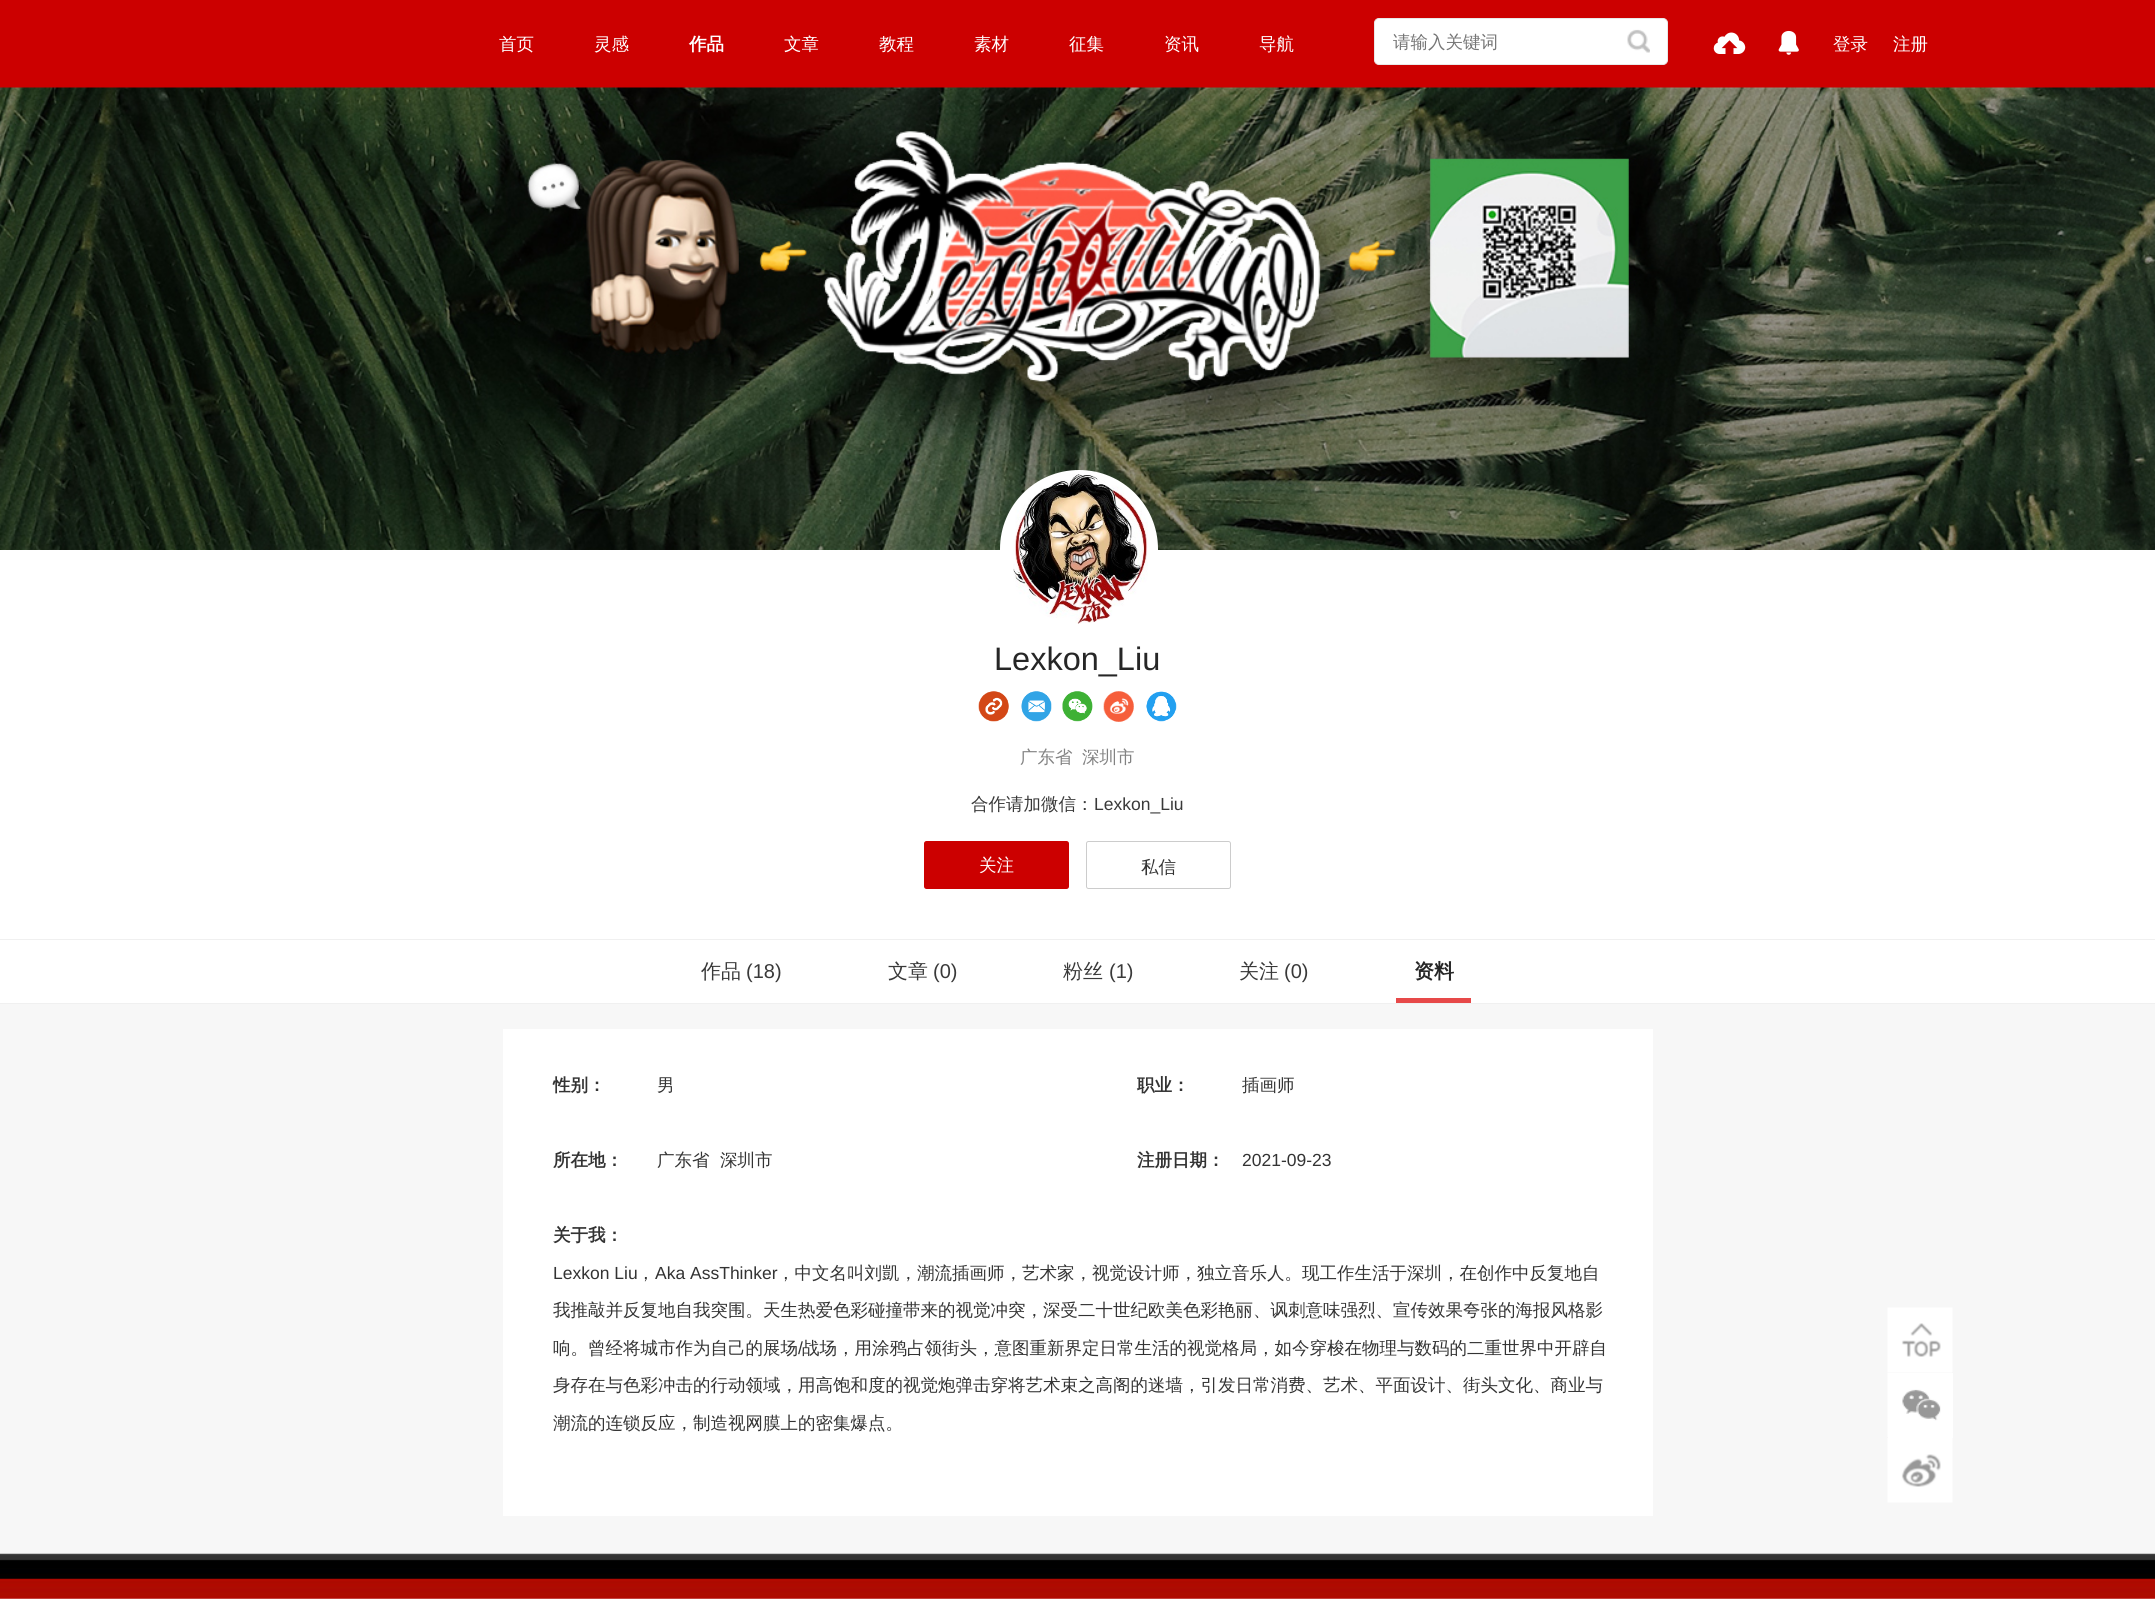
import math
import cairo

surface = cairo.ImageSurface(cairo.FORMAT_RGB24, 2155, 1599)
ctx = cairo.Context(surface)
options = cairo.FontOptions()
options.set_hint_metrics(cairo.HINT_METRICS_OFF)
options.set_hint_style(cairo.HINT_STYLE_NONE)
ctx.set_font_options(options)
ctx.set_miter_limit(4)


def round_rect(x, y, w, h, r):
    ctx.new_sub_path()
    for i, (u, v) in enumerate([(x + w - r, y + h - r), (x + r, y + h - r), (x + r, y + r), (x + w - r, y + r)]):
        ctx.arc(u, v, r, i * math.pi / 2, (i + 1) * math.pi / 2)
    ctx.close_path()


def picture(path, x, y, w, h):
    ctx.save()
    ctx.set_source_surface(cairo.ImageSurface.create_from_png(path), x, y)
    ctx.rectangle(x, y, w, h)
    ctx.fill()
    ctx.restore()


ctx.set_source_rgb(0.965, 0.965, 0.965)
ctx.paint()
ctx.set_source_rgb(0.8, 0, 0)
ctx.rectangle(0, 0, 2155, 88)
ctx.fill()
ctx.select_font_face("WenQuanYi Zen Hei Medium")
ctx.set_font_size(17.5)
ctx.set_source_rgb(1, 1, 1)
ctx.move_to(499, 50)
ctx.show_text("首页")
ctx.move_to(594, 50)
ctx.show_text("灵感")
ctx.select_font_face("WenQuanYi Zen Hei", cairo.FONT_SLANT_NORMAL, cairo.FONT_WEIGHT_BOLD)
ctx.move_to(689, 50)
ctx.show_text("作品")
ctx.select_font_face("WenQuanYi Zen Hei Medium")
ctx.move_to(784, 50)
ctx.show_text("文章")
ctx.move_to(879, 50)
ctx.show_text("教程")
ctx.move_to(974, 50)
ctx.show_text("素材")
ctx.move_to(1069, 50)
ctx.show_text("征集")
ctx.move_to(1164, 50)
ctx.show_text("资讯")
ctx.move_to(1259, 50)
ctx.show_text("导航")
round_rect(1374.5, 18.5, 293, 46, 4.5)
ctx.fill_preserve()
ctx.set_source_rgb(0.91, 0.91, 0.91)
ctx.set_line_width(1)
ctx.stroke()
ctx.set_source_rgb(0.459, 0.459, 0.459)
ctx.move_to(1393, 48)
ctx.show_text("请输入关键词")
picture("img1.png", 1627, 29, 23, 24)
picture("img2.png", 1713, 32, 33, 22)
picture("img3.png", 1778, 30, 21, 25)
ctx.set_source_rgb(1, 1, 1)
ctx.move_to(1833, 50)
ctx.show_text("登录")
ctx.move_to(1893, 50)
ctx.show_text("注册")
picture("img4.png", 0, 87, 2155, 463)
ctx.rectangle(0, 550, 2155, 453)
ctx.fill()
ctx.arc(1079, 549, 77, 0, 2 * math.pi)
ctx.fill_preserve()
ctx.set_line_width(4)
ctx.stroke()
picture("img5.png", 1013, 474, 135, 150)
ctx.set_source_rgb(0.941, 0.941, 0.941)
ctx.rectangle(0, 1003, 2155, 1)
ctx.fill()
ctx.select_font_face("Liberation Sans")
ctx.set_font_size(32.5)
ctx.set_source_rgb(0.149, 0.149, 0.149)
ctx.move_to(994, 670)
ctx.show_text("Lexkon_Liu")
picture("img6.png", 978, 691, 31, 31)
picture("img7.png", 1021, 691, 31, 31)
picture("img8.png", 1062, 691, 31, 31)
picture("img9.png", 1103, 691, 31, 31)
picture("img10.png", 1146, 691, 31, 31)
ctx.select_font_face("WenQuanYi Zen Hei Medium")
ctx.set_font_size(17.5)
ctx.set_source_rgb(0.51, 0.51, 0.51)
ctx.move_to(1020, 763)
ctx.show_text("广东省")
ctx.move_to(1082, 763)
ctx.show_text("深圳市")
ctx.set_source_rgb(0.224, 0.224, 0.224)
ctx.move_to(971, 810)
ctx.show_text("合作请加微信：")
ctx.select_font_face("Liberation Sans")
ctx.move_to(1094, 810)
ctx.show_text("Lexkon_Liu")
ctx.set_source_rgb(0.8, 0, 0)
round_rect(924, 841, 145, 48, 2.5)
ctx.fill()
ctx.select_font_face("WenQuanYi Zen Hei Medium")
ctx.set_source_rgb(1, 1, 1)
ctx.move_to(979, 871)
ctx.show_text("关注")
round_rect(1086.5, 841.5, 144, 47, 2)
ctx.set_source_rgb(0.8, 0.8, 0.8)
ctx.set_line_width(1)
ctx.stroke()
ctx.set_source_rgb(0.2, 0.2, 0.2)
ctx.move_to(1141, 873)
ctx.show_text("私信")
ctx.set_source_rgb(0.941, 0.941, 0.941)
ctx.rectangle(0, 939, 2155, 1)
ctx.fill()
ctx.set_font_size(20)
ctx.set_source_rgb(0.224, 0.224, 0.224)
ctx.move_to(701, 978)
ctx.show_text("作品")
ctx.select_font_face("Liberation Sans")
ctx.move_to(746, 978)
ctx.show_text("(18)")
ctx.select_font_face("WenQuanYi Zen Hei Medium")
ctx.move_to(888, 978)
ctx.show_text("文章")
ctx.select_font_face("Liberation Sans")
ctx.move_to(933, 978)
ctx.show_text("(0)")
ctx.select_font_face("WenQuanYi Zen Hei Medium")
ctx.move_to(1063, 978)
ctx.show_text("粉丝")
ctx.select_font_face("Liberation Sans")
ctx.move_to(1109, 978)
ctx.show_text("(1)")
ctx.select_font_face("WenQuanYi Zen Hei Medium")
ctx.move_to(1239, 978)
ctx.show_text("关注")
ctx.select_font_face("Liberation Sans")
ctx.move_to(1284, 978)
ctx.show_text("(0)")
ctx.select_font_face("WenQuanYi Zen Hei", cairo.FONT_SLANT_NORMAL, cairo.FONT_WEIGHT_BOLD)
ctx.set_source_rgb(0.149, 0.149, 0.149)
ctx.move_to(1414, 978)
ctx.show_text("资料")
ctx.set_source_rgb(0.906, 0.286, 0.286)
ctx.rectangle(1396, 998, 75, 5)
ctx.fill()
ctx.set_source_rgb(1, 1, 1)
ctx.rectangle(503, 1029, 1150, 487)
ctx.fill()
ctx.set_font_size(17.5)
ctx.set_source_rgb(0.2, 0.2, 0.2)
ctx.move_to(553, 1091)
ctx.show_text("性别：")
ctx.select_font_face("WenQuanYi Zen Hei Medium")
ctx.move_to(657, 1091)
ctx.show_text("男")
ctx.select_font_face("WenQuanYi Zen Hei", cairo.FONT_SLANT_NORMAL, cairo.FONT_WEIGHT_BOLD)
ctx.move_to(1137, 1091)
ctx.show_text("职业：")
ctx.select_font_face("WenQuanYi Zen Hei Medium")
ctx.move_to(1242, 1091)
ctx.show_text("插画师")
ctx.select_font_face("WenQuanYi Zen Hei", cairo.FONT_SLANT_NORMAL, cairo.FONT_WEIGHT_BOLD)
ctx.move_to(553, 1166)
ctx.show_text("所在地：")
ctx.select_font_face("WenQuanYi Zen Hei Medium")
ctx.move_to(657, 1166)
ctx.show_text("广东省")
ctx.move_to(720, 1166)
ctx.show_text("深圳市")
ctx.select_font_face("WenQuanYi Zen Hei", cairo.FONT_SLANT_NORMAL, cairo.FONT_WEIGHT_BOLD)
ctx.move_to(1137, 1166)
ctx.show_text("注册日期：")
ctx.select_font_face("Liberation Sans")
ctx.move_to(1242, 1166)
ctx.show_text("2021-09-23")
ctx.select_font_face("WenQuanYi Zen Hei", cairo.FONT_SLANT_NORMAL, cairo.FONT_WEIGHT_BOLD)
ctx.move_to(553, 1241)
ctx.show_text("关于我：")
ctx.select_font_face("Liberation Sans")
ctx.move_to(553, 1279)
ctx.show_text("Lexkon Liu")
ctx.select_font_face("WenQuanYi Zen Hei Medium")
ctx.move_to(637, 1279)
ctx.show_text("，")
ctx.select_font_face("Liberation Sans")
ctx.move_to(655, 1279)
ctx.show_text("Aka AssThinker")
ctx.select_font_face("WenQuanYi Zen Hei Medium")
ctx.move_to(777, 1279)
ctx.show_text("，中文名叫刘凱，潮流插画师，艺术家，视觉设计师，独立音乐人。现工作生活于深圳，在创作中反复地自")
ctx.move_to(553, 1316)
ctx.show_text("我推敲并反复地自我突围。天生热爱色彩碰撞带来的视觉冲突，深受二十世纪欧美色彩艳丽、讽刺意味强烈、宣传效果夸张的海报风格影")
ctx.move_to(553, 1354)
ctx.show_text("响。曾经将城市作为自己的展场")
ctx.select_font_face("Liberation Sans")
ctx.move_to(798, 1354)
ctx.show_text("/")
ctx.select_font_face("WenQuanYi Zen Hei Medium")
ctx.move_to(802, 1354)
ctx.show_text("战场，用涂鸦占领街头，意图重新界定日常生活的视觉格局，如今穿梭在物理与数码的二重世界中开辟自")
ctx.move_to(553, 1391)
ctx.show_text("身存在与色彩冲击的行动领域，用高饱和度的视觉炮弹击穿将艺术束之高阁的迷墙，引发日常消费、艺术、平面设计、街头文化、商业与")
ctx.move_to(553, 1429)
ctx.show_text("潮流的连锁反应，制造视网膜上的密集爆点。")
ctx.set_source_rgb(1, 1, 1)
ctx.rectangle(1888, 1373, 65, 65)
ctx.fill()
picture("img11.png", 1887, 1307, 66, 65)
picture("img12.png", 1887, 1372, 65, 65)
picture("img13.png", 1887, 1438, 66, 65)
picture("img14.png", 0, 1553, 2155, 46)
surface.write_to_png("page.png")
